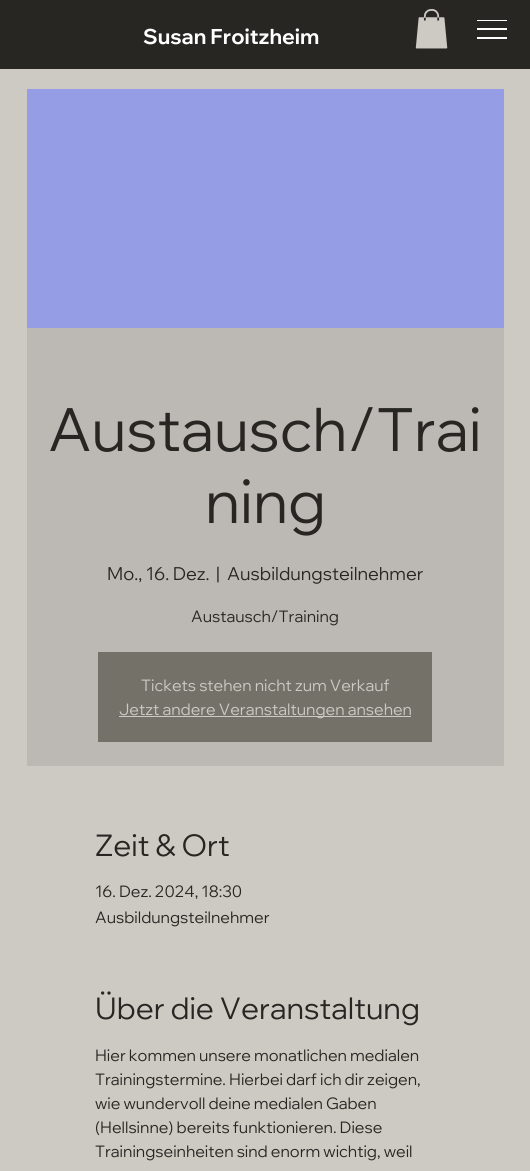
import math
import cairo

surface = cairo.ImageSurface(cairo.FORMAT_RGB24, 530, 1171)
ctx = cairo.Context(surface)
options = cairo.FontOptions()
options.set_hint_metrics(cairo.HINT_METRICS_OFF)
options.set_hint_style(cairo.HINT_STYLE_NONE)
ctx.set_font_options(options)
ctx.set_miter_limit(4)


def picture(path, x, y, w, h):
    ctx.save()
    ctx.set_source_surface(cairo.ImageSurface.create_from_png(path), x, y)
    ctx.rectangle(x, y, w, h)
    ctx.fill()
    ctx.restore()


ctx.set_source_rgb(0.804, 0.792, 0.765)
ctx.paint()
ctx.set_source_rgb(0.153, 0.149, 0.137)
ctx.rectangle(0, 0, 530, 69)
ctx.fill()
ctx.select_font_face("Wix Madefor Display", cairo.FONT_SLANT_NORMAL, cairo.FONT_WEIGHT_BOLD)
ctx.set_font_size(21)
ctx.set_source_rgb(1, 1, 1)
ctx.move_to(143, 44)
ctx.show_text("Susan Froitzheim")
picture("img1.png", 415, 9, 33, 40)
ctx.rectangle(477, 20, 30, 1)
ctx.fill()
ctx.rectangle(477, 28, 30, 2)
ctx.fill()
ctx.rectangle(477, 37, 30, 2)
ctx.fill()
ctx.set_source_rgb(0.737, 0.725, 0.706)
ctx.rectangle(27, 328, 477, 438)
ctx.fill()
ctx.set_source_rgb(0.584, 0.62, 0.898)
ctx.rectangle(27, 89, 477, 239)
ctx.fill()
ctx.select_font_face("Wix Madefor Display")
ctx.set_font_size(60)
ctx.set_source_rgb(0.153, 0.149, 0.137)
ctx.move_to(48, 451)
ctx.show_text("Austausch/Trai")
ctx.move_to(205, 523)
ctx.show_text("ning")
ctx.set_font_size(18)
ctx.move_to(107, 580)
ctx.show_text("Mo., 16. Dez.")
ctx.move_to(216, 580)
ctx.show_text("|")
ctx.move_to(227, 580)
ctx.show_text("Ausbildungsteilnehmer")
ctx.set_font_size(16)
ctx.move_to(191, 622)
ctx.show_text("Austausch/Training")
ctx.set_source_rgb(0.455, 0.443, 0.412)
ctx.rectangle(98, 652, 334, 90)
ctx.fill()
ctx.set_source_rgb(0.804, 0.792, 0.765)
ctx.move_to(141, 691)
ctx.show_text("Tickets stehen nicht zum Verkauf")
ctx.rectangle(119, 716, 292, 1)
ctx.fill()
ctx.move_to(119, 715)
ctx.show_text("Jetzt andere Veranstaltungen ansehen")
ctx.set_font_size(30)
ctx.set_source_rgb(0.153, 0.149, 0.137)
ctx.move_to(95, 856)
ctx.show_text("Zeit & Ort")
ctx.set_font_size(16)
ctx.move_to(95, 897)
ctx.show_text("16. Dez. 2024, 18:30")
ctx.move_to(95, 923)
ctx.show_text("Ausbildungsteilnehmer")
ctx.set_font_size(30)
ctx.move_to(95, 1019)
ctx.show_text("Über die Veranstaltung")
ctx.set_font_size(16)
ctx.move_to(95, 1061)
ctx.show_text("Hier kommen unsere monatlichen medialen")
ctx.move_to(95, 1085)
ctx.show_text("Trainingstermine. Hierbei darf ich dir zeigen,")
ctx.move_to(95, 1109)
ctx.show_text("wie wundervoll deine medialen Gaben")
ctx.move_to(95, 1133)
ctx.show_text("(Hellsinne) bereits funktionieren. Diese")
ctx.move_to(95, 1157)
ctx.show_text("Trainingseinheiten sind enorm wichtig, weil")
surface.write_to_png("page.png")
